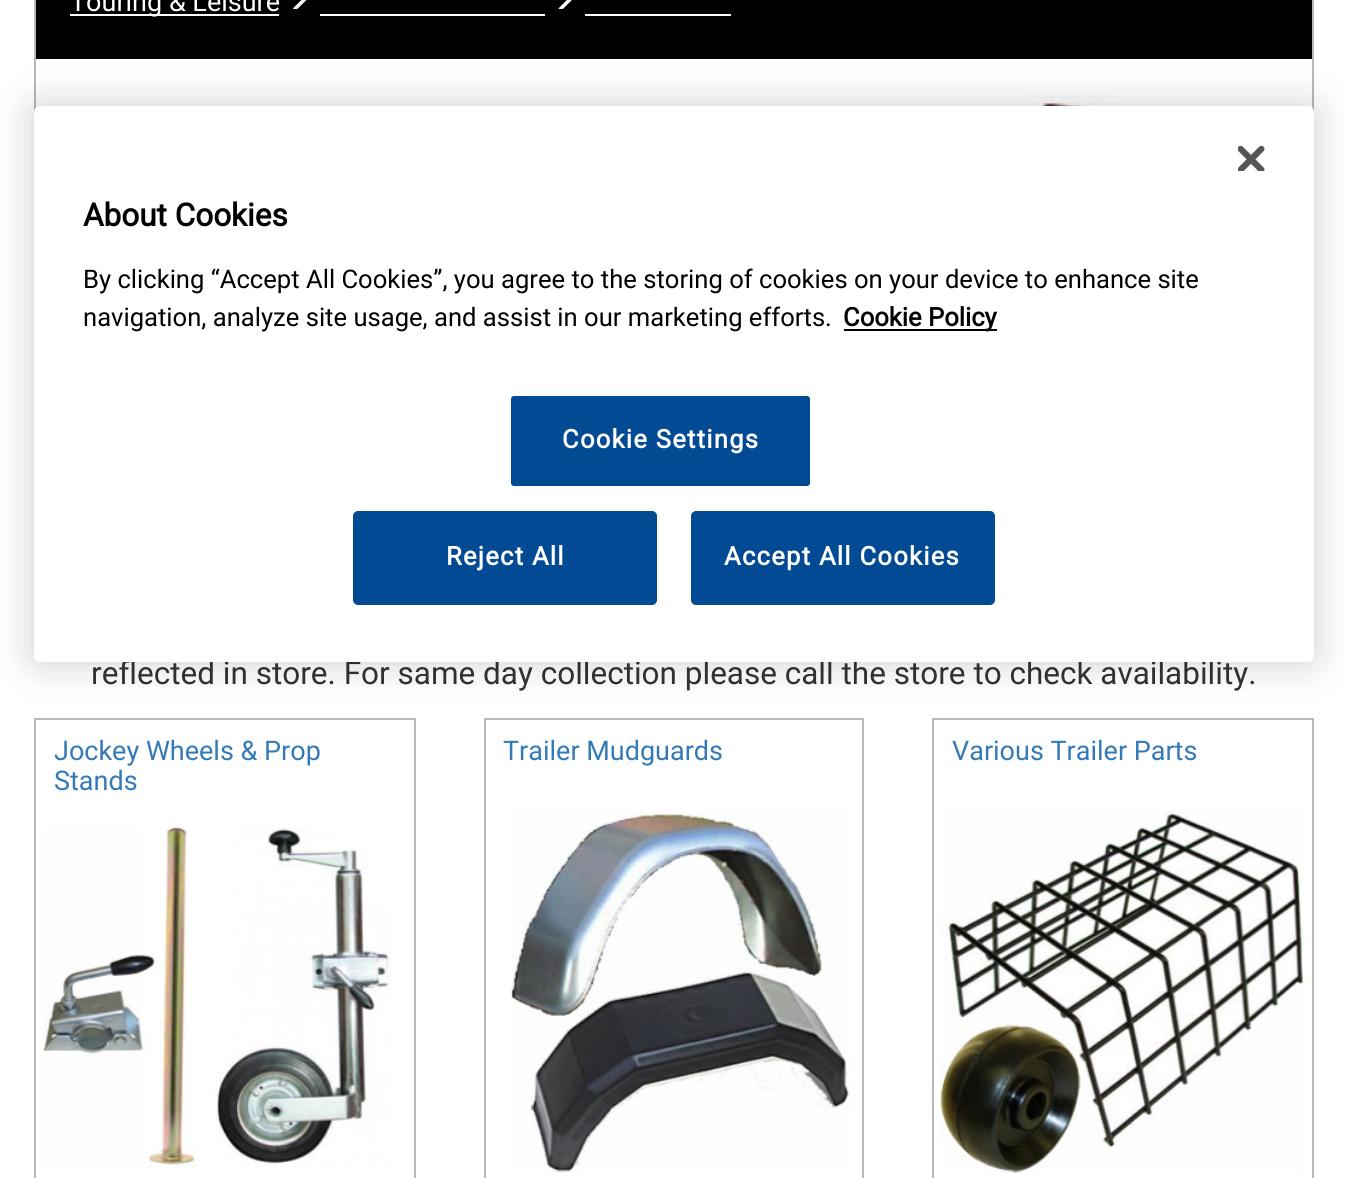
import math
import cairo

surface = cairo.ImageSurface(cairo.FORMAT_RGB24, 1347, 1178)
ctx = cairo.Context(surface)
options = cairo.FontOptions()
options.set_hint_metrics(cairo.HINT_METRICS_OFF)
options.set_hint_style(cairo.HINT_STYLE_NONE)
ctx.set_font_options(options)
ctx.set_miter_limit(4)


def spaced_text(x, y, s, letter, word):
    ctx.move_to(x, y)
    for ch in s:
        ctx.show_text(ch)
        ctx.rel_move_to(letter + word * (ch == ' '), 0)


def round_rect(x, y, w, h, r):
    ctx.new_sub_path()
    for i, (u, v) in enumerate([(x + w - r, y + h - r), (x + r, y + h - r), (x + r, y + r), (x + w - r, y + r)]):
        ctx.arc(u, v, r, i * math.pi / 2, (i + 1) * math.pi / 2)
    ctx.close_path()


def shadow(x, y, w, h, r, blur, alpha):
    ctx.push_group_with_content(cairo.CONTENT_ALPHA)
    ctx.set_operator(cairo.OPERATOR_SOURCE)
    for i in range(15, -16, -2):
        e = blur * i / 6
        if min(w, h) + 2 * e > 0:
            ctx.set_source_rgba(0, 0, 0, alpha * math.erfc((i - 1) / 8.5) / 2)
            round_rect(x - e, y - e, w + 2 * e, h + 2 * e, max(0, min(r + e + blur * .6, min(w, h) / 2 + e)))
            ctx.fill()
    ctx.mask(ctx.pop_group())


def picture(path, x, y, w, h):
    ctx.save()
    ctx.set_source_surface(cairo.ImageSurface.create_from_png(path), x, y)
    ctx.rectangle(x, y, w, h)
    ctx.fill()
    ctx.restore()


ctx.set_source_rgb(1, 1, 1)
ctx.paint()
ctx.rectangle(35, -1, 1278, 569)
ctx.set_source_rgb(0.722, 0.722, 0.722)
ctx.stroke()
ctx.set_source_rgb(0, 0, 0)
ctx.rectangle(36, 0, 1276, 59)
ctx.fill()
ctx.set_source_rgb(1, 1, 1)
ctx.rectangle(70, 14, 209, 2)
ctx.fill()
ctx.select_font_face("Roboto")
ctx.set_font_size(27)
ctx.move_to(70, 11)
ctx.show_text("Touring & Leisure")
picture("img1.png", 293, 0, 14, 9)
picture("img2.png", 558, 0, 14, 9)
ctx.rectangle(320, 14, 225, 2)
ctx.fill()
ctx.rectangle(585, 14, 146, 2)
ctx.fill()
picture("img3.png", 70, 93, 1177, 13)
ctx.set_font_size(31.5)
ctx.set_source_rgb(0.2, 0.2, 0.2)
ctx.move_to(91, 684)
ctx.show_text("reflected in store. For same day collection please call the store to check availability.")
ctx.rectangle(35, 719, 380, 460)
ctx.set_source_rgb(0.722, 0.722, 0.722)
ctx.stroke()
ctx.set_font_size(27)
ctx.set_source_rgb(0.2, 0.478, 0.718)
ctx.move_to(54, 760)
ctx.show_text("Jockey Wheels & Prop")
ctx.move_to(54, 790)
ctx.show_text("Stands")
picture("img4.png", 42, 826, 351, 342)
ctx.rectangle(485, 719, 378, 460)
ctx.set_source_rgb(0.722, 0.722, 0.722)
ctx.stroke()
ctx.set_source_rgb(0.2, 0.478, 0.718)
ctx.move_to(503, 760)
ctx.show_text("Trailer Mudguards")
picture("img5.png", 511, 810, 339, 363)
ctx.rectangle(933, 719, 380, 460)
ctx.set_source_rgb(0.722, 0.722, 0.722)
ctx.stroke()
ctx.set_source_rgb(0.2, 0.478, 0.718)
ctx.move_to(952, 760)
ctx.show_text("Various Trailer Parts")
picture("img6.png", 940, 811, 365, 362)
ctx.set_source_rgb(0, 0, 0)
shadow(34, 106, 1280, 556, 6, 20, 0.2)
ctx.set_source_rgb(1, 1, 1)
round_rect(34, 106, 1280, 556, 6)
ctx.fill()
picture("img7.png", 1238, 145, 27, 26)
ctx.select_font_face("Roboto", cairo.FONT_SLANT_NORMAL, cairo.FONT_WEIGHT_BOLD)
ctx.set_font_size(31.5)
ctx.set_source_rgb(0, 0, 0)
ctx.move_to(83, 226)
ctx.show_text("About Cookies")
ctx.select_font_face("Roboto")
ctx.set_font_size(25.6)
ctx.move_to(83, 288)
ctx.show_text("By clicking “Accept All Cookies”, you agree to the storing of cookies on your device to enhance site")
ctx.move_to(83, 326)
ctx.show_text("navigation, analyze site usage, and assist in our marketing efforts.")
ctx.rectangle(844, 329, 153, 2)
ctx.fill()
ctx.select_font_face("Roboto", cairo.FONT_SLANT_NORMAL, cairo.FONT_WEIGHT_BOLD)
ctx.move_to(843, 326)
ctx.show_text("Cookie Policy")
ctx.set_source_rgb(0.008, 0.29, 0.576)
round_rect(510, 395, 301, 92, 4)
ctx.fill_preserve()
ctx.set_source_rgb(1, 1, 1)
ctx.stroke()
spaced_text(562, 448, "Cookie Settings", 1.25, 0)
ctx.set_source_rgb(0.008, 0.29, 0.576)
round_rect(354, 512, 302, 92, 4)
ctx.fill_preserve()
ctx.stroke()
ctx.set_source_rgb(1, 1, 1)
spaced_text(446, 565, "Reject All", 1.25, 0)
ctx.set_source_rgb(0.008, 0.29, 0.576)
round_rect(692, 512, 302, 92, 4)
ctx.fill_preserve()
ctx.stroke()
ctx.set_source_rgb(1, 1, 1)
spaced_text(724, 565, "Accept All Cookies", 1.25, 0)
surface.write_to_png("page.png")
